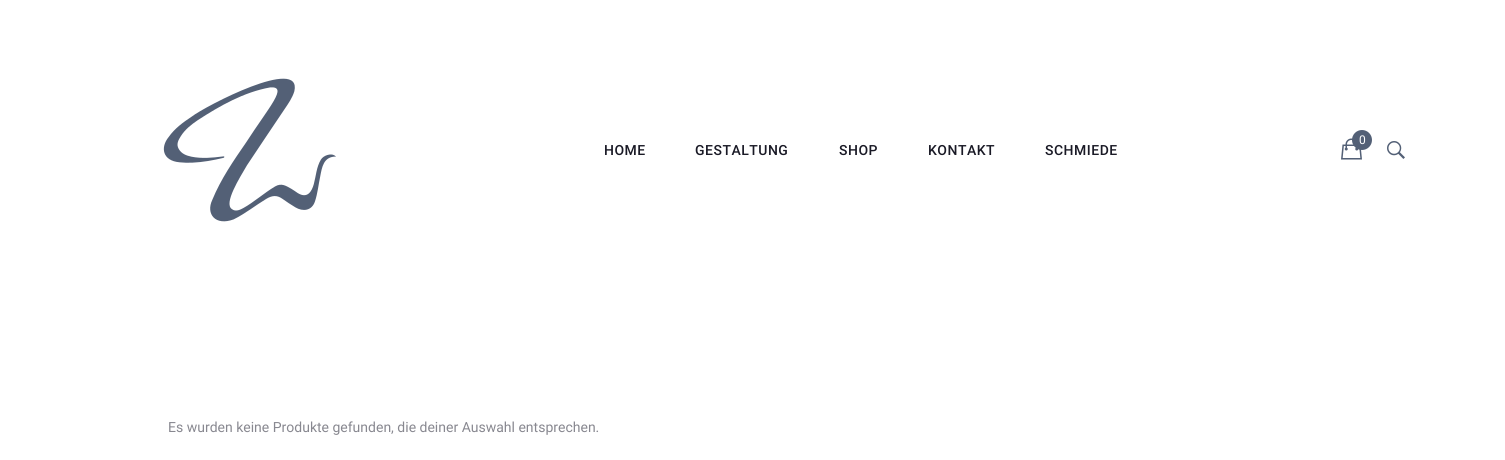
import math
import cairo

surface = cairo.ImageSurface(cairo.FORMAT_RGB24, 1505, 460)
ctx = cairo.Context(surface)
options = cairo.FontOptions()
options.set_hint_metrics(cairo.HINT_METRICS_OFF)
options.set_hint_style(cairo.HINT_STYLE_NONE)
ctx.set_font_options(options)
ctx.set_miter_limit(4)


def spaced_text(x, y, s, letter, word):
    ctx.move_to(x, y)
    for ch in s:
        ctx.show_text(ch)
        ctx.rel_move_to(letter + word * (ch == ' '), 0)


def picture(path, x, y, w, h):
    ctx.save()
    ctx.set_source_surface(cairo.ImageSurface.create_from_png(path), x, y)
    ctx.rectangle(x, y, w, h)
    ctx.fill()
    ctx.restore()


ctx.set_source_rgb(1, 1, 1)
ctx.paint()
picture("img1.png", 163, 78, 173, 144)
picture("img2.png", 1341, 138, 21, 22)
ctx.set_source_rgb(0.325, 0.376, 0.463)
ctx.arc(1362, 140, 10, 0, 2 * math.pi)
ctx.fill()
ctx.select_font_face("Roboto")
ctx.set_font_size(12)
ctx.set_source_rgb(1, 1, 1)
ctx.move_to(1359, 144)
ctx.show_text("0")
picture("img3.png", 1387, 141, 18, 18)
ctx.select_font_face("Roboto Medium")
ctx.set_font_size(14)
ctx.set_source_rgb(0.102, 0.102, 0.149)
spaced_text(604, 155, "HOME", 0.5, 0)
spaced_text(695, 155, "GESTALTUNG", 0.5, 0)
spaced_text(839, 155, "SHOP", 0.5, 0)
spaced_text(928, 155, "KONTAKT", 0.5, 0)
spaced_text(1045, 155, "SCHMIEDE", 0.5, 0)
ctx.select_font_face("Roboto")
ctx.set_source_rgb(0.533, 0.533, 0.565)
ctx.move_to(168, 432)
ctx.show_text("Es wurden keine Produkte gefunden, die deiner Auswahl entsprechen.")
surface.write_to_png("page.png")
